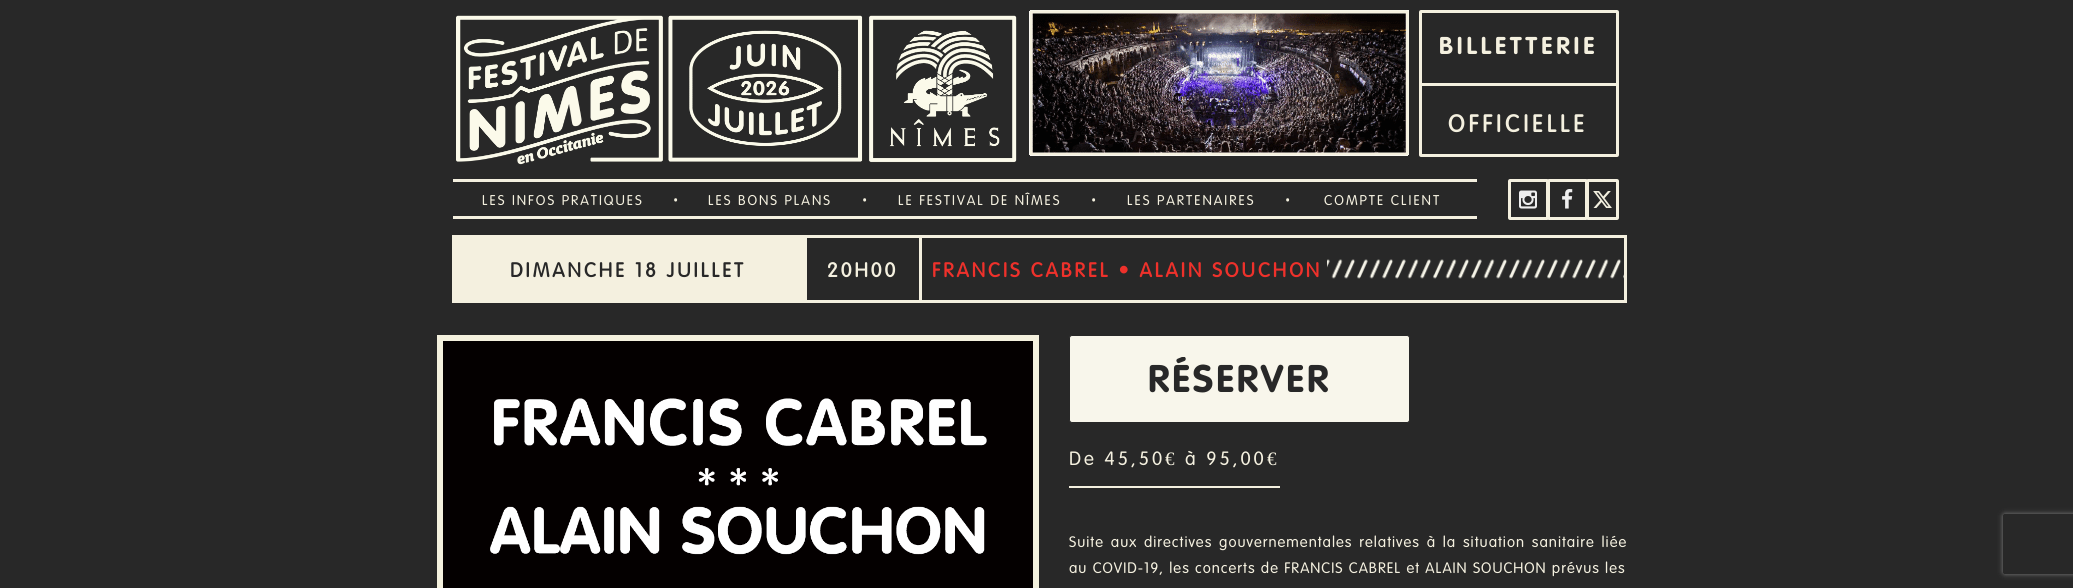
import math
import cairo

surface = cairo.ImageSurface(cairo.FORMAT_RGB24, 2073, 588)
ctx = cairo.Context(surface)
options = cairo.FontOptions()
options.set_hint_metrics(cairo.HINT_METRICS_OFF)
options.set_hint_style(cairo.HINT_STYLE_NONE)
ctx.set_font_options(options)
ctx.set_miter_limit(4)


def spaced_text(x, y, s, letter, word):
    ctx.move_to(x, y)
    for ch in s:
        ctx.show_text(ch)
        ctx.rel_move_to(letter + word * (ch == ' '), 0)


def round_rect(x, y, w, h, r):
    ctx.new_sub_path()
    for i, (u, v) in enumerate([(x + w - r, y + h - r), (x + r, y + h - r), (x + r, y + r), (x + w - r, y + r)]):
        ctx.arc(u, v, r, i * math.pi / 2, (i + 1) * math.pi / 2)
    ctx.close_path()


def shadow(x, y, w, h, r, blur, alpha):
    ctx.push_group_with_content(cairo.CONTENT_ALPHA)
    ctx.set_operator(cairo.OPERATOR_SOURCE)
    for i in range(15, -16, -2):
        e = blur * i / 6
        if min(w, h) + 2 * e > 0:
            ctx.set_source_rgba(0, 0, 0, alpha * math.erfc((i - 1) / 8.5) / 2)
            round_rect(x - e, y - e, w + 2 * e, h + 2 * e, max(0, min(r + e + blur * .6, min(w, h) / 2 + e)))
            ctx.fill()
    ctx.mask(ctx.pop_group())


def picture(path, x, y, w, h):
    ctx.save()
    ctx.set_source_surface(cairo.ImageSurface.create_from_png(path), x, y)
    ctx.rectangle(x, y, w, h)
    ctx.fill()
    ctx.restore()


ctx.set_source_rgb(0.157, 0.157, 0.157)
ctx.paint()
picture("img1.png", 456, 15, 561, 150)
picture("img2.png", 1029, 10, 380, 146)
round_rect(1420.5, 11.5, 197, 144, 0.5)
ctx.set_source_rgb(0.957, 0.941, 0.875)
ctx.set_line_width(3)
ctx.stroke()
ctx.select_font_face("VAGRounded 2", cairo.FONT_SLANT_NORMAL, cairo.FONT_WEIGHT_BOLD)
ctx.set_font_size(24)
spaced_text(1439, 54, "BILLETTERIE", 4, 0)
ctx.rectangle(1419, 83, 200, 3)
ctx.fill()
ctx.select_font_face("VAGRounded", cairo.FONT_SLANT_NORMAL, cairo.FONT_WEIGHT_BOLD)
spaced_text(1448, 132, "OFFICIELLE", 4, 0)
ctx.rectangle(453, 179, 1024, 3)
ctx.fill()
ctx.rectangle(453, 216, 1024, 3)
ctx.fill()
ctx.select_font_face("VAGRounded Light")
ctx.set_font_size(14)
spaced_text(482, 205, "LES INFOS PRATIQUES", 2, 0)
ctx.select_font_face("Open Sans")
ctx.move_to(673, 205)
ctx.show_text("•")
ctx.select_font_face("VAGRounded Light")
spaced_text(708, 205, "LES BONS PLANS", 2, 0)
ctx.select_font_face("Open Sans")
ctx.move_to(862, 205)
ctx.show_text("•")
ctx.select_font_face("VAGRounded Light")
spaced_text(898, 205, "LE FESTIVAL DE NÎMES", 2, 0)
ctx.select_font_face("Open Sans")
ctx.move_to(1091, 205)
ctx.show_text("•")
ctx.select_font_face("VAGRounded Light")
spaced_text(1127, 205, "LES PARTENAIRES", 2, 0)
ctx.select_font_face("Open Sans")
ctx.move_to(1285, 205)
ctx.show_text("•")
ctx.select_font_face("VAGRounded Light")
spaced_text(1324, 205, "COMPTE CLIENT", 2, 0)
round_rect(1509.5, 180.5, 38, 38, 0.5)
ctx.stroke()
picture("img3.png", 1519, 190, 18, 19)
round_rect(1548.5, 180.5, 38, 38, 0.5)
ctx.stroke()
picture("img4.png", 1562, 189, 11, 20)
round_rect(1587.5, 180.5, 30, 38, 0.5)
ctx.stroke()
picture("img5.png", 1593, 191, 19, 17)
ctx.rectangle(452, 235, 352, 68)
ctx.fill()
ctx.select_font_face("VAGRounded", cairo.FONT_SLANT_NORMAL, cairo.FONT_WEIGHT_BOLD)
ctx.set_font_size(20)
ctx.set_source_rgb(0.157, 0.157, 0.157)
spaced_text(510, 277, "DIMANCHE 18 JUILLET", 3, 0)
ctx.rectangle(805.5, 236.5, 115, 65)
ctx.set_source_rgb(0.957, 0.941, 0.875)
ctx.stroke()
spaced_text(827, 277, "20H00", 3, 0)
picture("img6.png", 1327, 259, 297, 20)
ctx.rectangle(922, 235, 705, 3)
ctx.fill()
ctx.rectangle(1624, 235, 3, 68)
ctx.fill()
ctx.rectangle(922, 300, 705, 3)
ctx.fill()
ctx.set_source_rgb(0.933, 0.192, 0.169)
spaced_text(932, 277, "FRANCIS CABREL • ALAIN SOUCHON", 3, 0)
ctx.rectangle(440, 338, 596, 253)
ctx.set_source_rgb(0.957, 0.945, 0.871)
ctx.set_line_width(6)
ctx.stroke()
picture("img7.png", 443, 341, 590, 247)
ctx.set_source_rgb(0.969, 0.961, 0.918)
round_rect(1069.5, 335.5, 340, 87, 2.5)
ctx.fill_preserve()
ctx.set_source_rgb(0.157, 0.157, 0.157)
ctx.set_line_width(1)
ctx.stroke()
ctx.save()
ctx.rectangle(1112, 357, 255, 40)
ctx.clip()
ctx.select_font_face("VAGRounded 2", cairo.FONT_SLANT_NORMAL, cairo.FONT_WEIGHT_BOLD)
ctx.set_font_size(38)
spaced_text(1148, 392, "RÉSERVER", 3, 0)
ctx.restore()
ctx.set_source_rgb(0.957, 0.941, 0.875)
ctx.rectangle(1069, 486, 211, 2)
ctx.fill()
ctx.select_font_face("VAGRounded Light")
ctx.set_font_size(19)
spaced_text(1069, 465, "De 45,50", 3, 0)
ctx.select_font_face("Liberation Serif")
spaced_text(1165, 465, "€", 3, 0)
ctx.select_font_face("VAGRounded Light")
spaced_text(1185, 465, "à 95,00", 3, 0)
ctx.select_font_face("Liberation Serif")
spaced_text(1267, 465, "€", 3, 0)
ctx.select_font_face("VAGRounded Light")
ctx.set_font_size(15)
spaced_text(1069, 547, "Suite aux directives gouvernementales relatives à la situation sanitaire liée", 1, 2)
spaced_text(1069, 573, "au COVID-19, les concerts de FRANCIS CABREL et ALAIN SOUCHON prévus les", 1, 0.5)
ctx.save()
ctx.set_fill_rule(cairo.FILL_RULE_EVEN_ODD)
ctx.new_path()
ctx.move_to(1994, 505)
ctx.line_to(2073, 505)
ctx.line_to(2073, 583)
ctx.line_to(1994, 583)
ctx.close_path()
ctx.move_to(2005, 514)
ctx.line_to(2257, 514)
ctx.curve_to(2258, 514, 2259, 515, 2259, 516)
ctx.line_to(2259, 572)
ctx.curve_to(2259, 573, 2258, 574, 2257, 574)
ctx.line_to(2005, 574)
ctx.curve_to(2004, 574, 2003, 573, 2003, 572)
ctx.line_to(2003, 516)
ctx.curve_to(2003, 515, 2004, 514, 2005, 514)
ctx.close_path()
ctx.clip()
ctx.set_source_rgb(0.502, 0.502, 0.502)
shadow(2003, 514, 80, 60, 2, 2.5, 1)
ctx.restore()
surface.write_to_png("page.png")
